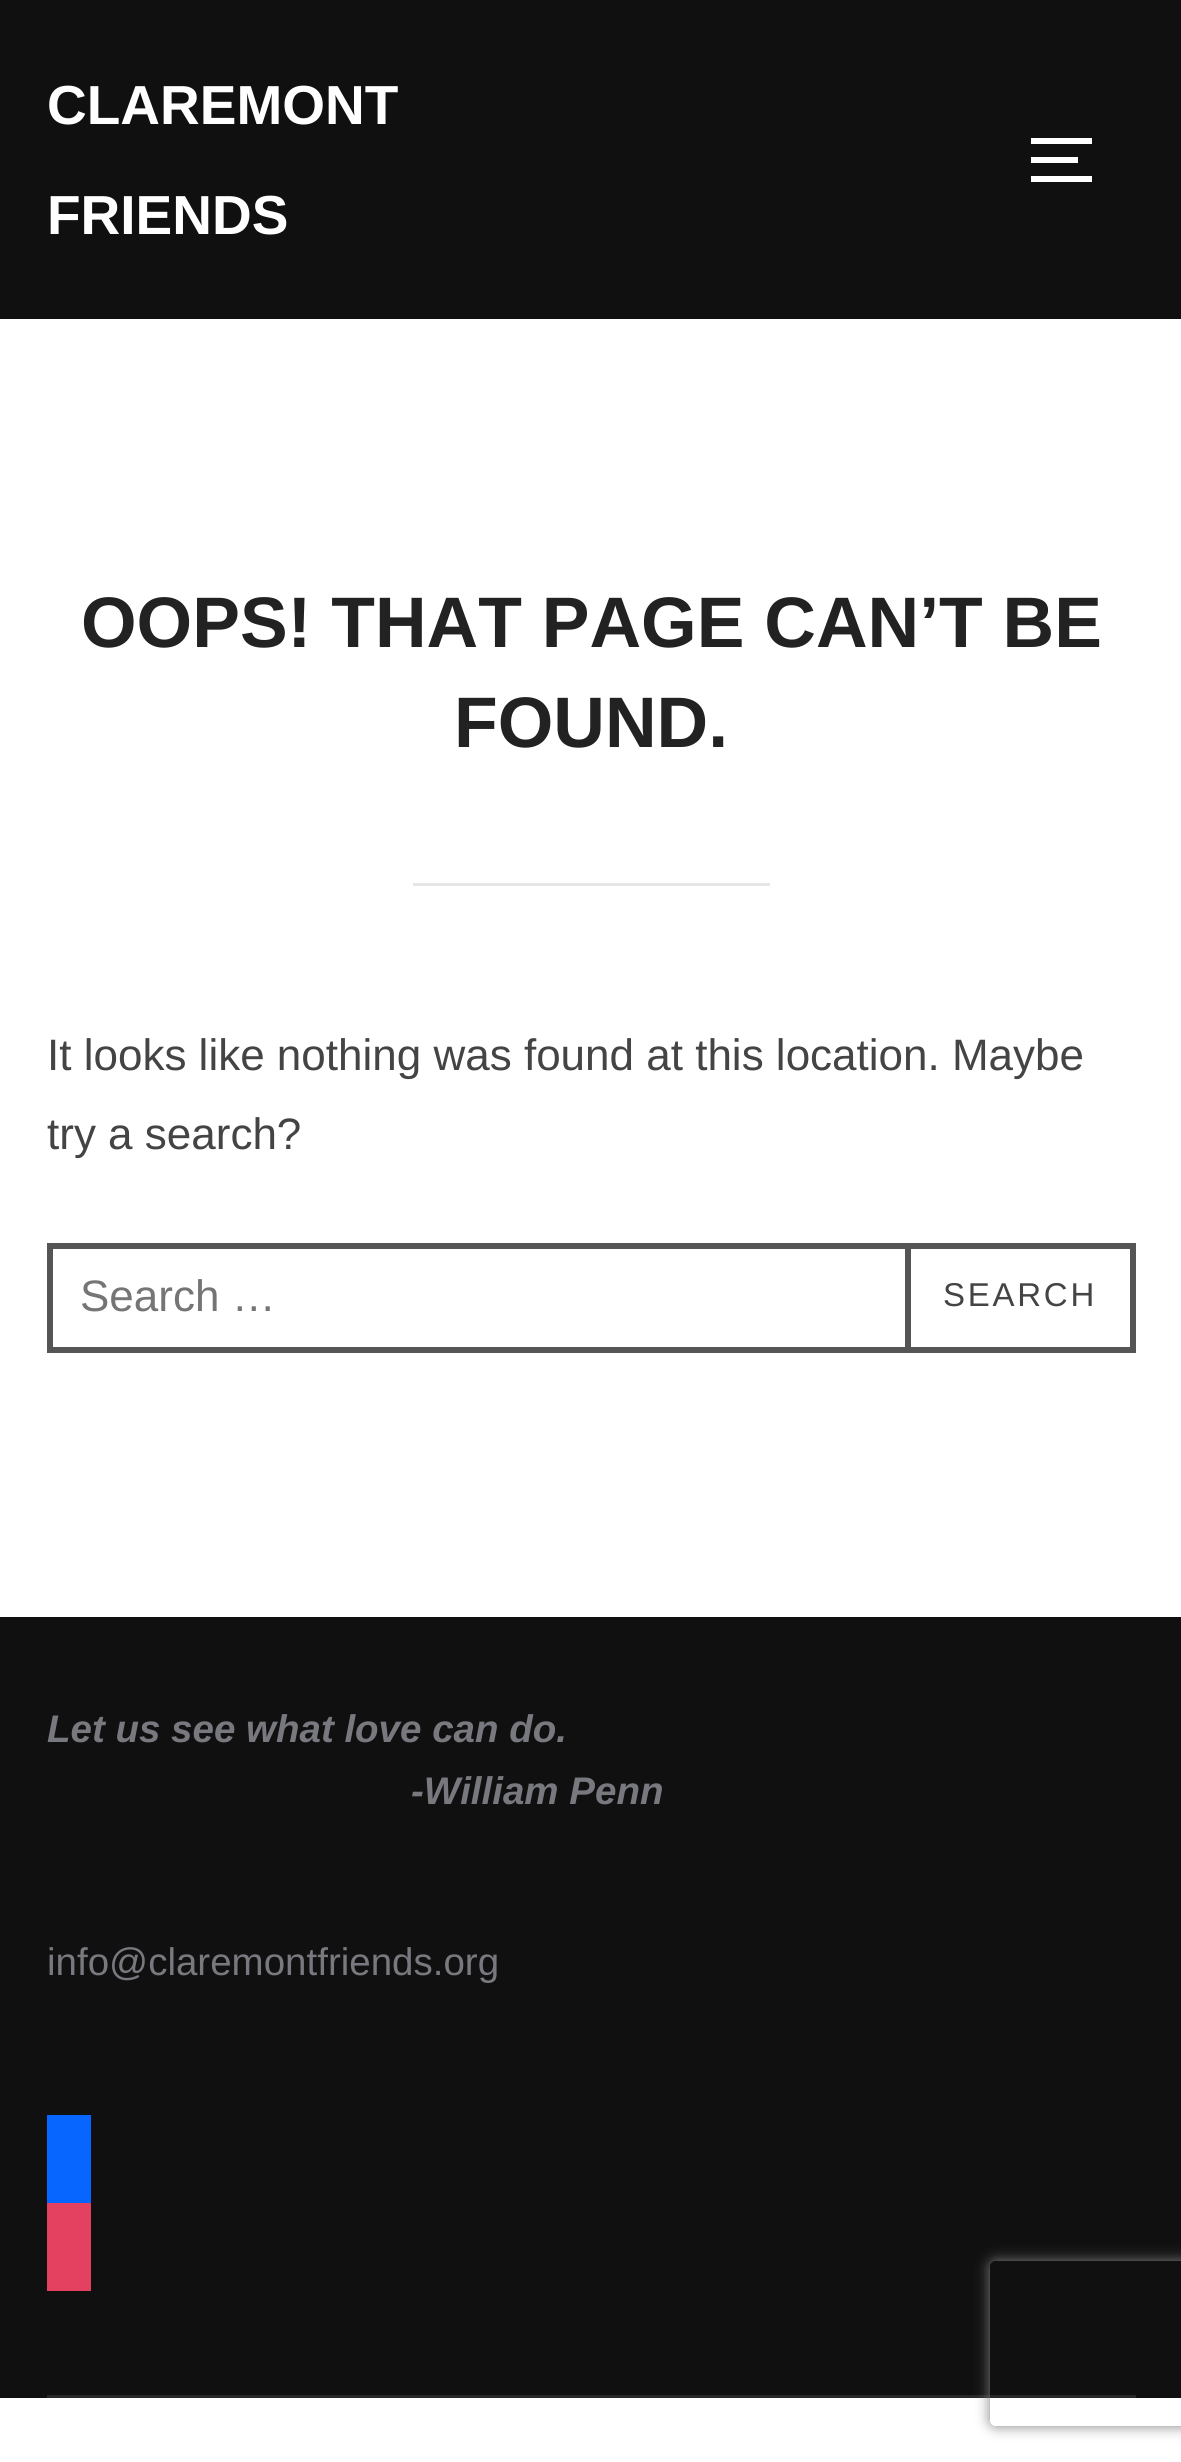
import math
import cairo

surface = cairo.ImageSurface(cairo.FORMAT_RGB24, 1181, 2462)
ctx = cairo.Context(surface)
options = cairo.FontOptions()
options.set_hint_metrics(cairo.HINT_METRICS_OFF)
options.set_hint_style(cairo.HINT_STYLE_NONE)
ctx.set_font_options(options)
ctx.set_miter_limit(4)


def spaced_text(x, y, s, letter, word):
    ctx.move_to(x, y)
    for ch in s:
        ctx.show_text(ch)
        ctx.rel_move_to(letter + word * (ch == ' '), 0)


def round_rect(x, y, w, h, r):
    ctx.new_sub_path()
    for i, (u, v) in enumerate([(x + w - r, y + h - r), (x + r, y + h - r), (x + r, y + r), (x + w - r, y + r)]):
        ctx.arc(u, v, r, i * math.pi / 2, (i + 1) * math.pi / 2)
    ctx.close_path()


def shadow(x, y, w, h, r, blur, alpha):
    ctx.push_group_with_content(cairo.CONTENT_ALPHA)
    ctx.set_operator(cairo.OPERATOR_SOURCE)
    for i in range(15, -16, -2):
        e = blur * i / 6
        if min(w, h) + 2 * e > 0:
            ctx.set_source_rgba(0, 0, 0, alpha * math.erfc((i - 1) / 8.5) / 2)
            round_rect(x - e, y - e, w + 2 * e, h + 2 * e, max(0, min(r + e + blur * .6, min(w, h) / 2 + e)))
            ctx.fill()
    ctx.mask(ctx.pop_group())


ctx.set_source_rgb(1, 1, 1)
ctx.paint()
ctx.set_source_rgb(0.063, 0.063, 0.063)
ctx.rectangle(0, 0, 1181, 319)
ctx.fill()
ctx.select_font_face("Liberation Sans", cairo.FONT_SLANT_NORMAL, cairo.FONT_WEIGHT_BOLD)
ctx.set_font_size(55)
ctx.set_source_rgb(1, 1, 1)
ctx.move_to(47, 124)
ctx.show_text("CLAREMONT")
ctx.move_to(47, 234)
ctx.show_text("FRIENDS")
ctx.rectangle(1031, 138, 61, 6)
ctx.fill()
ctx.rectangle(1031, 157, 47, 6)
ctx.fill()
ctx.rectangle(1031, 176, 61, 6)
ctx.fill()
ctx.set_font_size(71.5)
ctx.set_source_rgb(0.133, 0.133, 0.133)
ctx.move_to(81, 647)
ctx.show_text("OOPS! THAT PAGE CAN’T BE")
ctx.move_to(454, 747)
ctx.show_text("FOUND.")
ctx.set_source_rgb(0.902, 0.902, 0.902)
ctx.rectangle(413, 883, 357, 3)
ctx.fill()
ctx.select_font_face("Liberation Sans")
ctx.set_font_size(44)
ctx.set_source_rgb(0.267, 0.267, 0.267)
ctx.move_to(47, 1070)
ctx.show_text("It looks like nothing was found at this location. Maybe")
ctx.move_to(47, 1149)
ctx.show_text("try a search?")
ctx.rectangle(50, 1246, 1083, 104)
ctx.set_source_rgb(0.337, 0.333, 0.333)
ctx.set_line_width(6)
ctx.stroke()
ctx.set_source_rgb(0.459, 0.459, 0.459)
ctx.move_to(80, 1311)
ctx.show_text("Search …")
ctx.rectangle(908, 1246, 225, 104)
ctx.set_source_rgb(0.337, 0.333, 0.333)
ctx.stroke()
ctx.set_font_size(33)
ctx.set_source_rgb(0.267, 0.267, 0.267)
spaced_text(943, 1306, "SEARCH", 2.75, 0)
ctx.set_source_rgb(0.063, 0.063, 0.063)
ctx.rectangle(0, 1617, 1181, 781)
ctx.fill()
ctx.select_font_face("Liberation Sans", cairo.FONT_SLANT_ITALIC, cairo.FONT_WEIGHT_BOLD)
ctx.set_font_size(38.5)
ctx.set_source_rgb(0.471, 0.471, 0.498)
ctx.move_to(47, 1742)
ctx.show_text("Let us see what love can do.")
ctx.move_to(411, 1804)
ctx.show_text("-William Penn")
ctx.select_font_face("Liberation Sans")
ctx.move_to(47, 1975)
ctx.show_text("info@claremontfriends.org")
ctx.set_source_rgb(0.031, 0.4, 1)
ctx.rectangle(47, 2115, 44, 88)
ctx.fill()
ctx.set_source_rgb(0.894, 0.251, 0.373)
ctx.rectangle(47, 2203, 44, 88)
ctx.fill()
ctx.set_source_rgb(0.157, 0.157, 0.157)
ctx.rectangle(47, 2395, 1089, 3)
ctx.fill()
ctx.save()
ctx.set_fill_rule(cairo.FILL_RULE_EVEN_ODD)
ctx.new_path()
ctx.move_to(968, 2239)
ctx.line_to(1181, 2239)
ctx.line_to(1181, 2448)
ctx.line_to(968, 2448)
ctx.close_path()
ctx.move_to(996, 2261)
ctx.line_to(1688, 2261)
ctx.curve_to(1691.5, 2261, 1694, 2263.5, 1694, 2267)
ctx.line_to(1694, 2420)
ctx.curve_to(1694, 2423.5, 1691.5, 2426, 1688, 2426)
ctx.line_to(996, 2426)
ctx.curve_to(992.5, 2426, 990, 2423.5, 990, 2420)
ctx.line_to(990, 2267)
ctx.curve_to(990, 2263.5, 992.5, 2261, 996, 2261)
ctx.close_path()
ctx.clip()
ctx.set_source_rgb(0.502, 0.502, 0.502)
shadow(990, 2261, 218, 165, 6, 7, 1)
ctx.restore()
surface.write_to_png("page.png")
